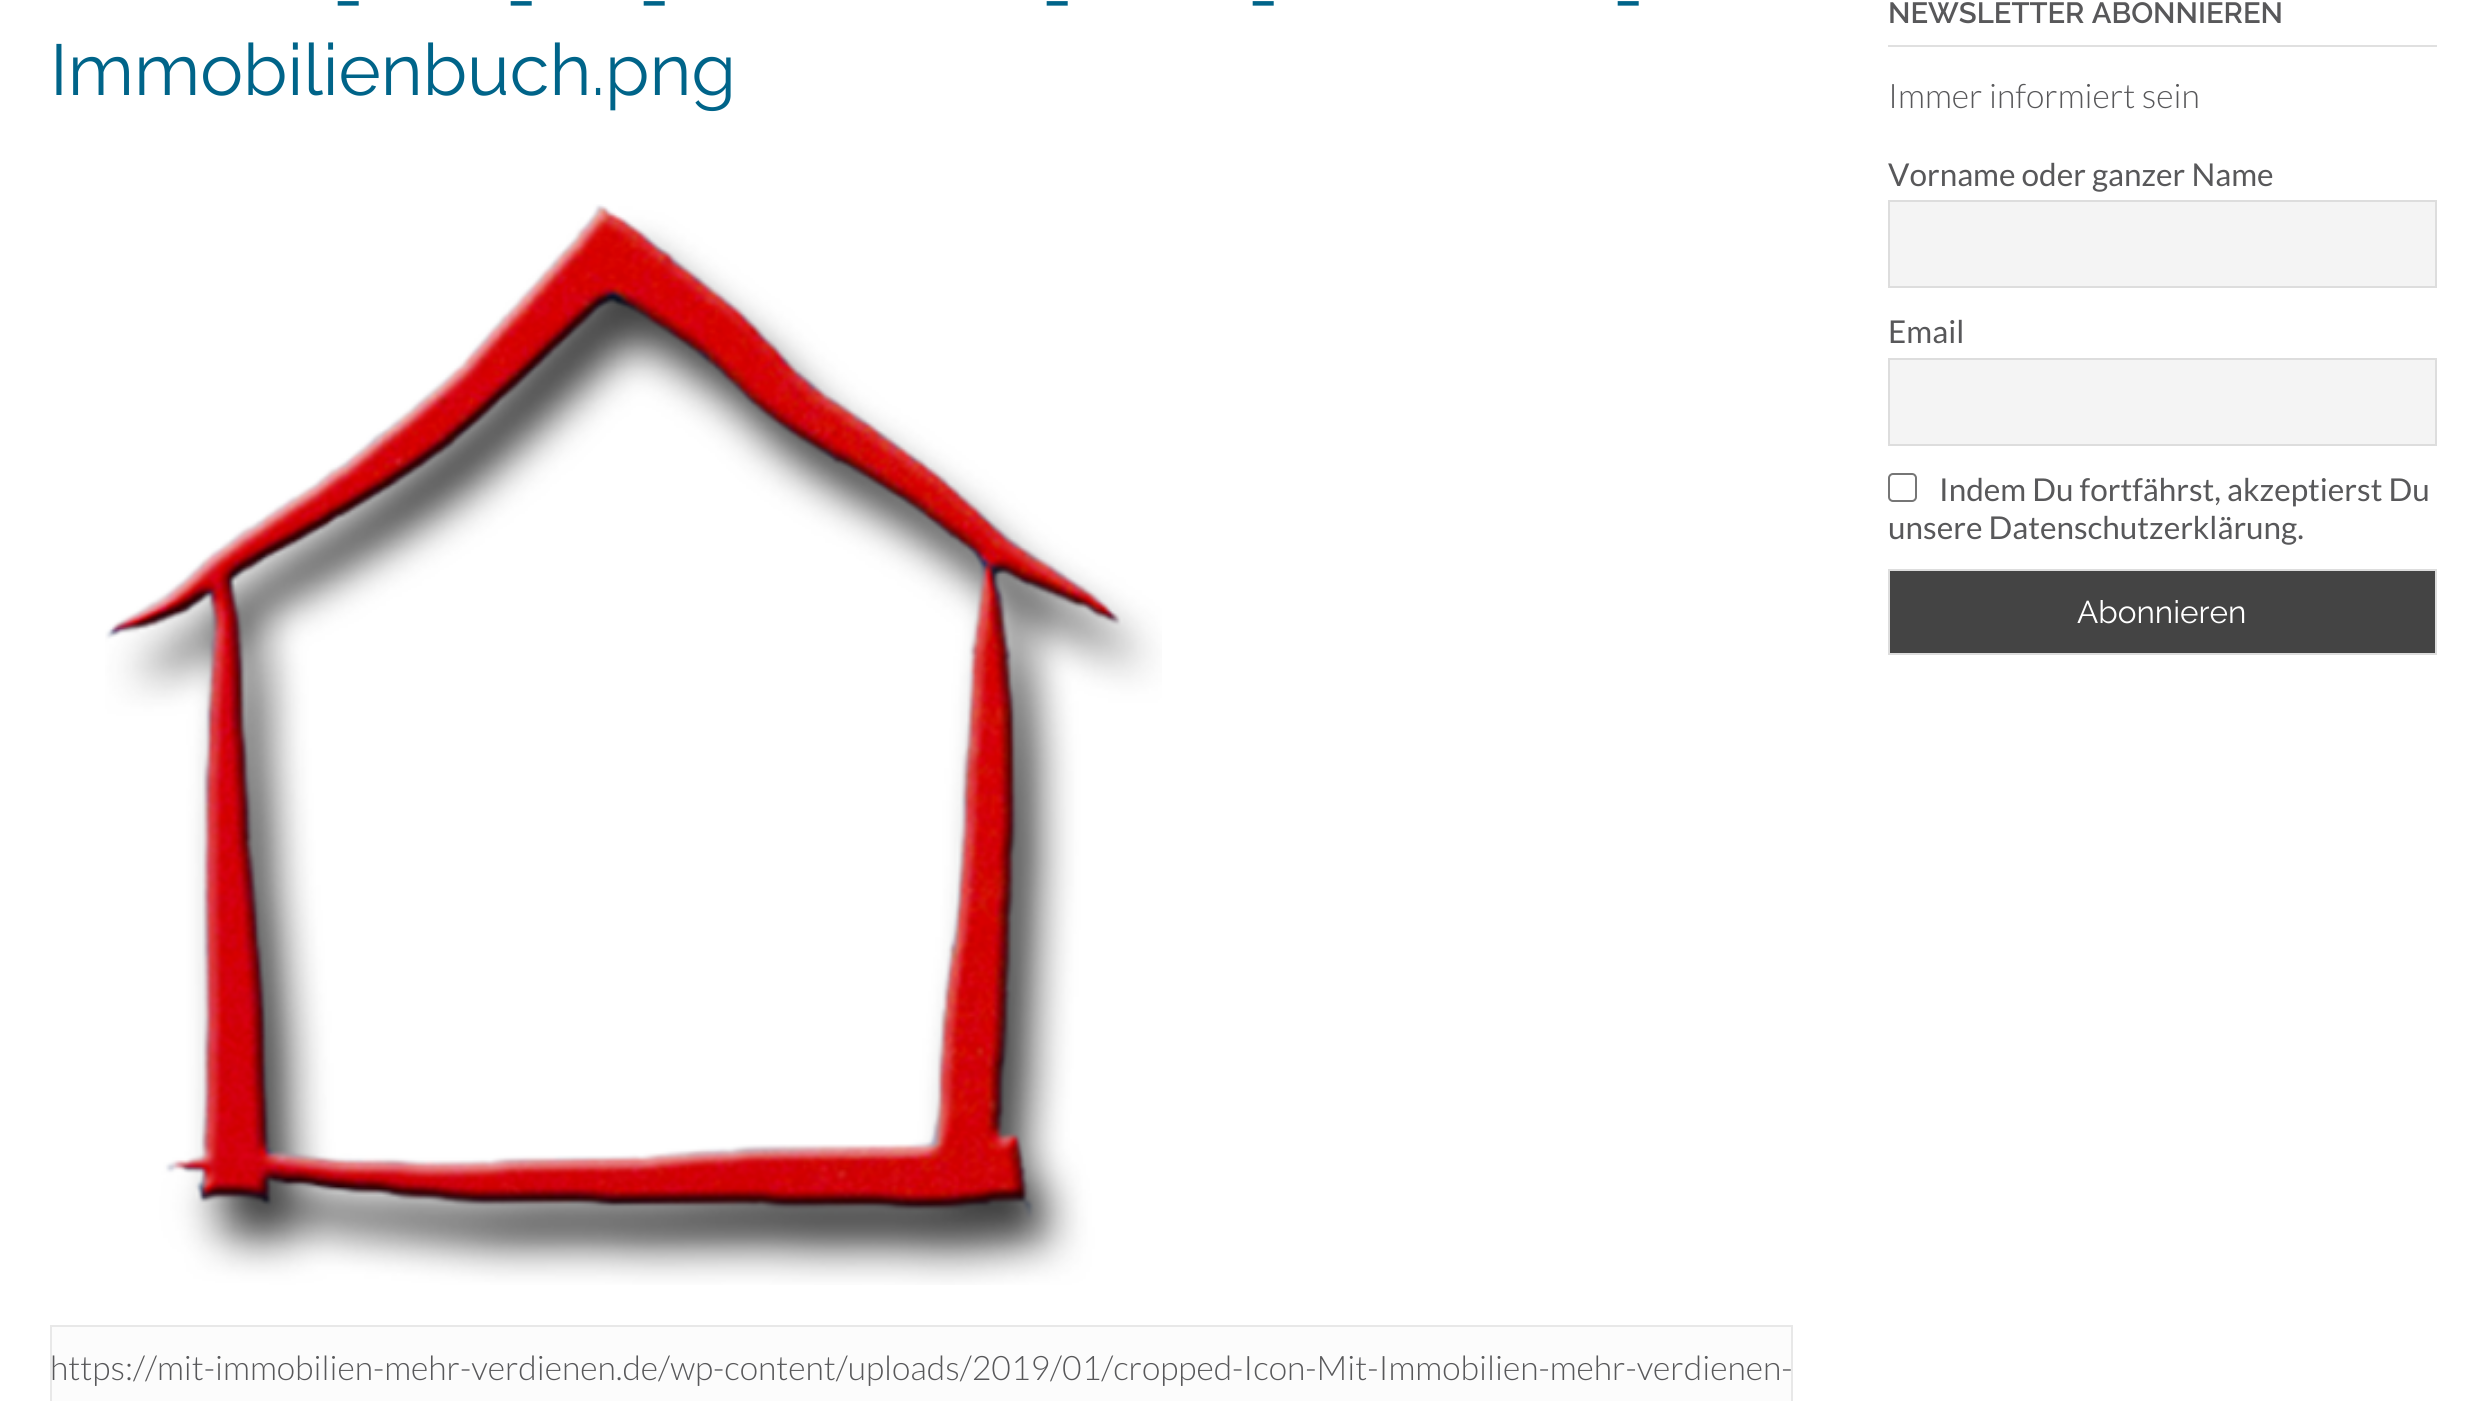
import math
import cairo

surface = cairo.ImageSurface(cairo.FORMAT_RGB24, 2485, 1401)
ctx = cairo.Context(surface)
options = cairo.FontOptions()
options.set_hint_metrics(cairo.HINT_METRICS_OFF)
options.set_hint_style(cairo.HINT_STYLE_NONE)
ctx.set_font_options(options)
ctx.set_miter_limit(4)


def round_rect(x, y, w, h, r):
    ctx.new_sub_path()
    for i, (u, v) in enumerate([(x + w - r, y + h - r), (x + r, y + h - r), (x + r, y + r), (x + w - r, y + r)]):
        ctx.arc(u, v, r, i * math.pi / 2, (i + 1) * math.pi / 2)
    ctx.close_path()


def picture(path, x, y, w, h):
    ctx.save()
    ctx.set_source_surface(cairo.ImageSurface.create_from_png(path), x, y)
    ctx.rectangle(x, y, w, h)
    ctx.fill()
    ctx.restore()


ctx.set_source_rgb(1, 1, 1)
ctx.paint()
ctx.select_font_face("Raleway")
ctx.set_font_size(72)
ctx.set_source_rgb(0, 0.392, 0.537)
ctx.move_to(333, 23)
ctx.show_text("-")
ctx.move_to(506, 23)
ctx.show_text("-")
ctx.move_to(639, 23)
ctx.show_text("-")
ctx.move_to(1042, 23)
ctx.show_text("-")
ctx.move_to(1248, 23)
ctx.show_text("-")
ctx.move_to(1613, 23)
ctx.show_text("-")
ctx.move_to(50, 95)
ctx.show_text("Immobilienbuch.png")
picture("img1.png", 105, 204, 1057, 1081)
ctx.set_source_rgb(0.988, 0.988, 0.988)
ctx.rectangle(51, 1326, 1741, 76)
ctx.fill_preserve()
ctx.set_source_rgb(0.91, 0.91, 0.91)
ctx.stroke()
ctx.select_font_face("Lato Light")
ctx.set_font_size(33.75)
ctx.set_source_rgb(0.345, 0.345, 0.353)
ctx.move_to(50, 1380)
ctx.show_text("https://mit-immobilien-mehr-verdienen.de/wp-content/uploads/2019/01/cropped-Icon-Mit-Immobilien-mehr-verdienen-")
ctx.set_source_rgb(0.878, 0.878, 0.878)
ctx.rectangle(1888, 45, 549, 2)
ctx.fill()
ctx.select_font_face("Raleway SemiBold")
ctx.set_font_size(29.25)
ctx.set_source_rgb(0.345, 0.345, 0.353)
ctx.move_to(1888, 23)
ctx.show_text("NEWSLETTER ABONNIEREN")
ctx.select_font_face("Lato Light")
ctx.set_font_size(33.75)
ctx.move_to(1888, 108)
ctx.show_text("Immer informiert sein")
ctx.select_font_face("Lato")
ctx.set_font_size(31.5)
ctx.move_to(1888, 186)
ctx.show_text("Vorname oder ganzer Name")
ctx.set_source_rgb(0.957, 0.957, 0.957)
ctx.rectangle(1889, 201, 547, 86)
ctx.fill_preserve()
ctx.set_source_rgb(0.867, 0.867, 0.867)
ctx.stroke()
ctx.set_source_rgb(0.345, 0.345, 0.353)
ctx.move_to(1888, 343)
ctx.show_text("Email")
ctx.set_source_rgb(0.957, 0.957, 0.957)
ctx.rectangle(1889, 359, 547, 86)
ctx.fill_preserve()
ctx.set_source_rgb(0.867, 0.867, 0.867)
ctx.stroke()
round_rect(1889, 474, 27, 27, 4)
ctx.set_source_rgb(0.463, 0.463, 0.463)
ctx.stroke()
ctx.set_source_rgb(0.345, 0.345, 0.353)
ctx.move_to(1939, 501)
ctx.show_text("Indem Du fortfährst, akzeptierst Du")
ctx.move_to(1888, 539)
ctx.show_text("unsere Datenschutzerklärung.")
ctx.set_source_rgb(0.267, 0.267, 0.267)
ctx.rectangle(1889, 570, 547, 84)
ctx.fill_preserve()
ctx.set_source_rgb(0.867, 0.867, 0.867)
ctx.stroke()
ctx.select_font_face("Raleway")
ctx.set_source_rgb(1, 1, 1)
ctx.move_to(2077, 623)
ctx.show_text("Abonnieren")
surface.write_to_png("page.png")
